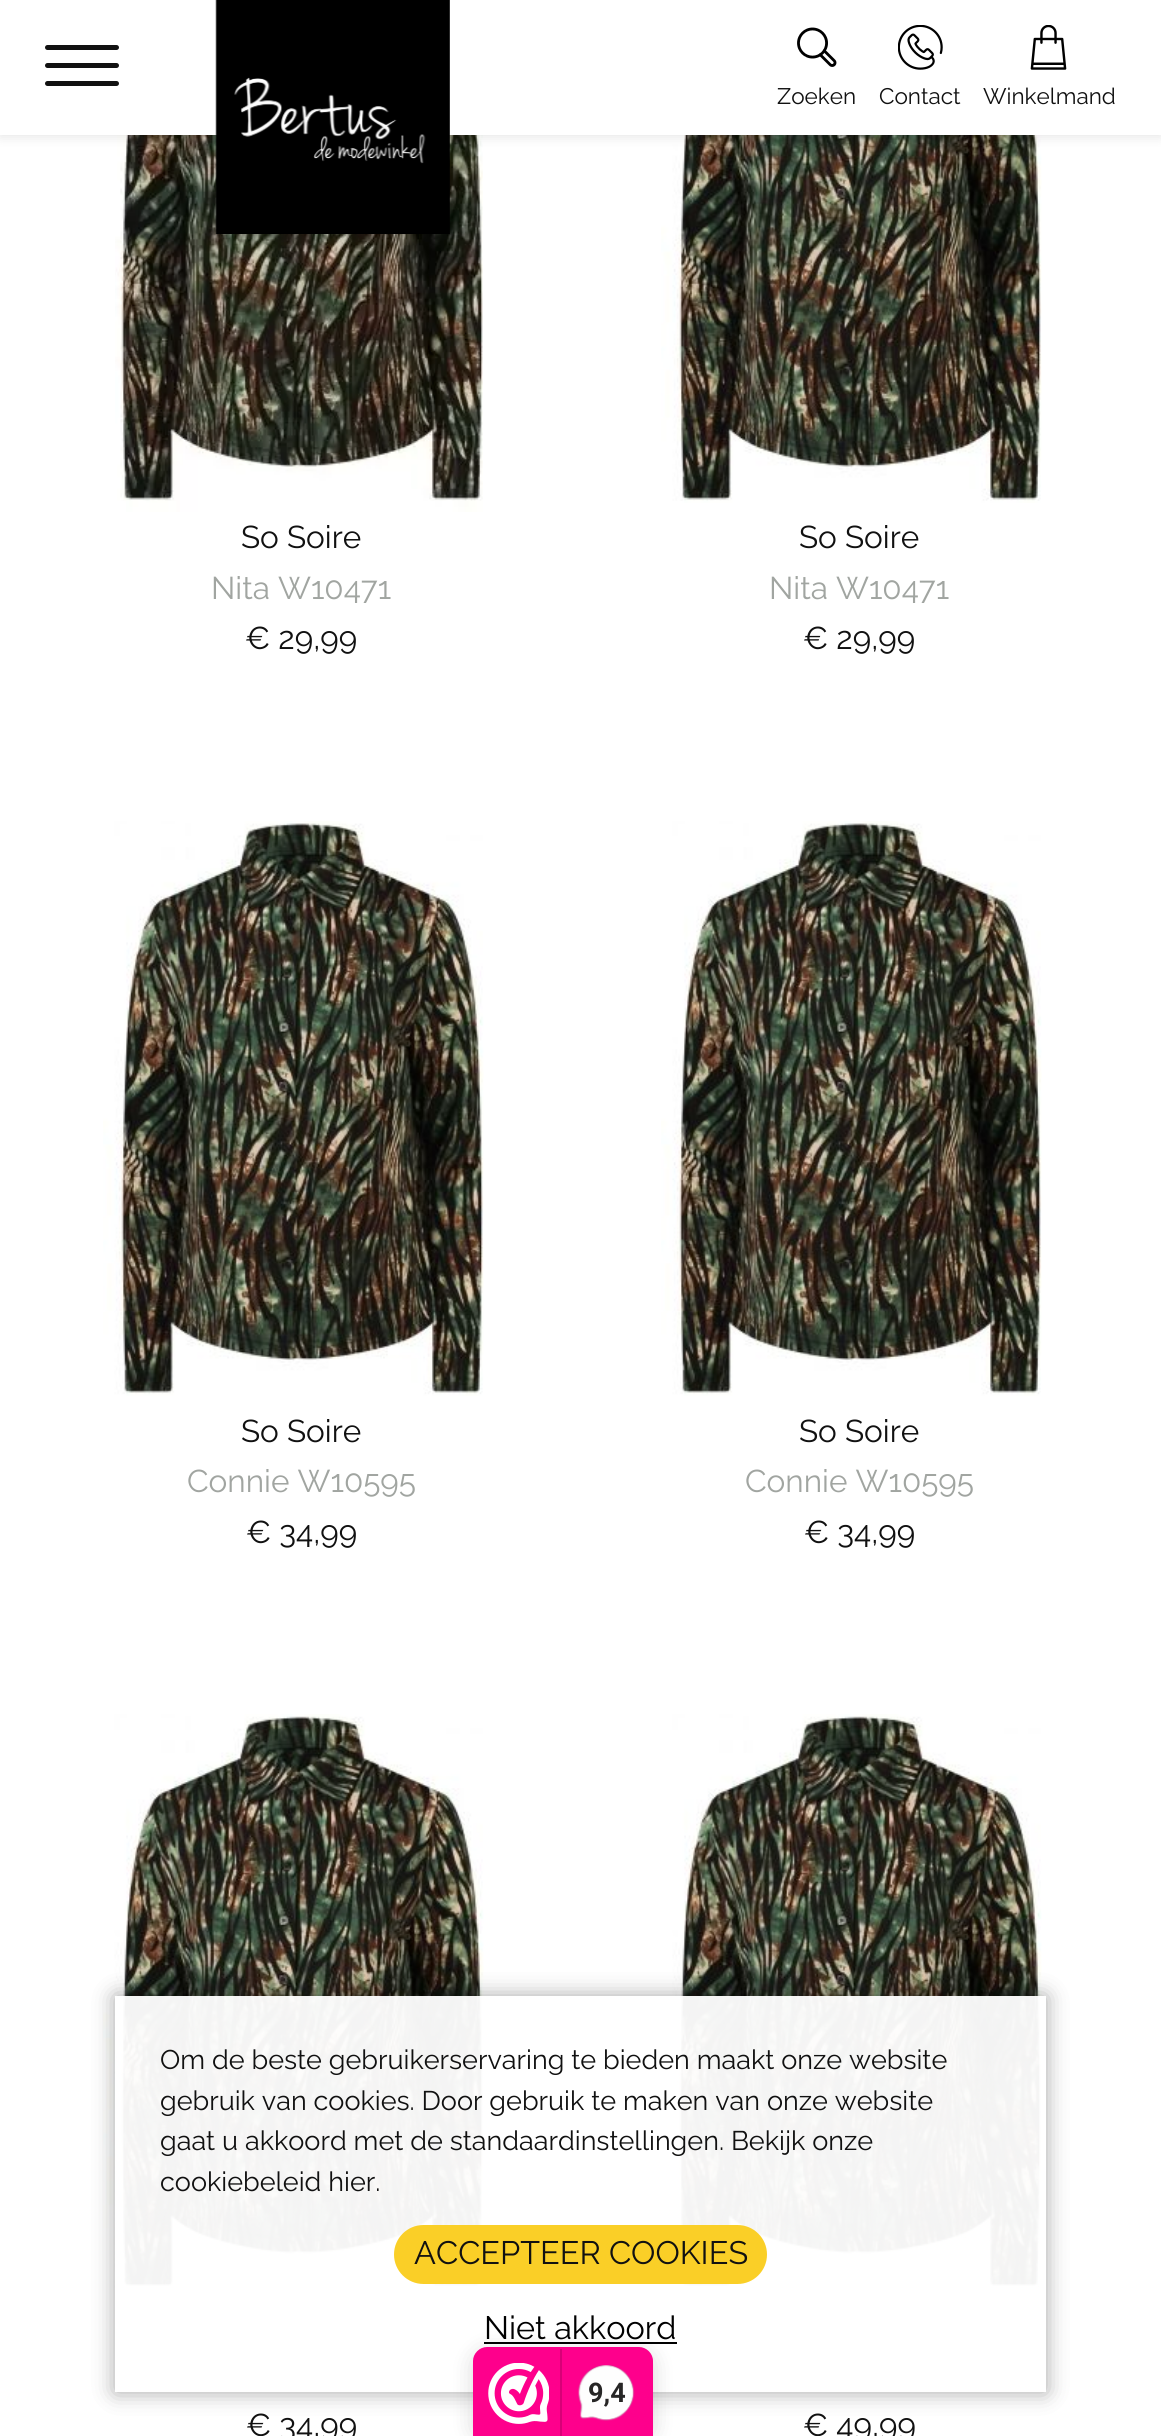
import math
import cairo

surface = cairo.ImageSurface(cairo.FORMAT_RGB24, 1161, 2436)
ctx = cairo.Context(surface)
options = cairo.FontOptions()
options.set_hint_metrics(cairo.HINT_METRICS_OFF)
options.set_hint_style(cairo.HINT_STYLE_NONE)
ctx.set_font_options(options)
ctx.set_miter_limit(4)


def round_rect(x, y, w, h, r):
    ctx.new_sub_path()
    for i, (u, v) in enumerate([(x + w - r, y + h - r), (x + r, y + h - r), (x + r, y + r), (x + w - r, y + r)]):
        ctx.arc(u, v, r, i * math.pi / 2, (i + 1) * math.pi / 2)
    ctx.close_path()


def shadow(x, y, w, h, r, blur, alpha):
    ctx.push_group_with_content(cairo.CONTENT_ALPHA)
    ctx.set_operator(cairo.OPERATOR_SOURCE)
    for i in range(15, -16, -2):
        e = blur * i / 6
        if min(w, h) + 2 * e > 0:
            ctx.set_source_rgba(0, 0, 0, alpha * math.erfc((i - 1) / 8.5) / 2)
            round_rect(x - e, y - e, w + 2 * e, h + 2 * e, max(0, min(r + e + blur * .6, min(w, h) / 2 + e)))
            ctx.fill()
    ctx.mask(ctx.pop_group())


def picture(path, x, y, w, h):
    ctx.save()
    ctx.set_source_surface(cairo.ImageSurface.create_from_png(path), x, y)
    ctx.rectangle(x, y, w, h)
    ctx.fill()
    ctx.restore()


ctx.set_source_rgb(1, 1, 1)
ctx.paint()
picture("img5.png", 115, 135, 368, 377)
picture("img6.png", 661, 135, 381, 368)
ctx.set_source_rgb(0, 0, 0)
shadow(0, 2, 1161, 135, 0, 5.5, 0.1)
ctx.set_source_rgb(1, 1, 1)
ctx.rectangle(0, 0, 1161, 135)
ctx.fill()
ctx.set_source_rgb(0.067, 0.067, 0.067)
round_rect(45, 81, 74, 5, 2.5)
ctx.fill()
round_rect(45, 45, 74, 5, 2.5)
ctx.fill()
round_rect(45, 63, 74, 5, 2.5)
ctx.fill()
picture("img1.png", 215, 0, 235, 234)
picture("img2.png", 797, 27, 40, 40)
ctx.select_font_face("Raleway")
ctx.set_font_size(22.5)
ctx.move_to(777, 104)
ctx.show_text("Zoeken")
picture("img3.png", 898, 25, 45, 45)
ctx.move_to(879, 104)
ctx.show_text("Contact")
picture("img4.png", 1030, 25, 37, 45)
ctx.move_to(983, 104)
ctx.show_text("Winkelmand")
ctx.set_font_size(31.5)
ctx.move_to(241, 548)
ctx.show_text("So Soire")
ctx.set_source_rgb(0.631, 0.647, 0.631)
ctx.move_to(211, 599)
ctx.show_text("Nita W10471")
ctx.set_source_rgb(0.067, 0.067, 0.067)
ctx.move_to(245, 649)
ctx.show_text("€ 29,99")
ctx.move_to(799, 548)
ctx.show_text("So Soire")
ctx.set_source_rgb(0.631, 0.647, 0.631)
ctx.move_to(769, 599)
ctx.show_text("Nita W10471")
ctx.set_source_rgb(0.067, 0.067, 0.067)
ctx.move_to(803, 649)
ctx.show_text("€ 29,99")
picture("img7.png", 103, 821, 381, 575)
ctx.move_to(241, 1442)
ctx.show_text("So Soire")
ctx.set_source_rgb(0.631, 0.647, 0.631)
ctx.move_to(187, 1492)
ctx.show_text("Connie W10595")
ctx.set_source_rgb(0.067, 0.067, 0.067)
ctx.move_to(246, 1543)
ctx.show_text("€ 34,99")
picture("img7.png", 661, 821, 381, 575)
ctx.move_to(799, 1442)
ctx.show_text("So Soire")
ctx.set_source_rgb(0.631, 0.647, 0.631)
ctx.move_to(745, 1492)
ctx.show_text("Connie W10595")
ctx.set_source_rgb(0.067, 0.067, 0.067)
ctx.move_to(804, 1543)
ctx.show_text("€ 34,99")
picture("img8.png", 103, 1714, 381, 575)
ctx.move_to(246, 2436)
ctx.show_text("€ 34,99")
picture("img8.png", 661, 1714, 381, 575)
ctx.move_to(803, 2436)
ctx.show_text("€ 49,99")
ctx.save()
ctx.set_fill_rule(cairo.FILL_RULE_EVEN_ODD)
ctx.new_path()
ctx.move_to(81, 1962)
ctx.line_to(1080, 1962)
ctx.line_to(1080, 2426)
ctx.line_to(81, 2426)
ctx.close_path()
ctx.move_to(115, 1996)
ctx.line_to(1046, 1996)
ctx.line_to(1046, 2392)
ctx.line_to(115, 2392)
ctx.close_path()
ctx.clip()
ctx.set_source_rgb(0, 0, 0)
shadow(115, 1996, 931, 396, 0, 11, 0.35)
ctx.restore()
ctx.set_source_rgba(1, 1, 1, 0.95)
ctx.rectangle(115, 1996, 931, 396)
ctx.fill()
ctx.set_font_size(27)
ctx.set_source_rgb(0.067, 0.067, 0.067)
ctx.move_to(160, 2069)
ctx.show_text("Om de beste gebruikerservaring te bieden maakt onze website")
ctx.move_to(160, 2110)
ctx.show_text("gebruik van cookies. Door gebruik te maken van onze website")
ctx.move_to(160, 2150)
ctx.show_text("gaat u akkoord met de standaardinstellingen. Bekijk onze")
ctx.move_to(160, 2191)
ctx.show_text("cookiebeleid hier.")
ctx.set_source_rgb(0.98, 0.812, 0.153)
round_rect(394, 2225, 373, 59, 29.5)
ctx.fill()
ctx.set_font_size(32.4)
ctx.set_source_rgb(0.067, 0.067, 0.067)
ctx.move_to(414, 2264)
ctx.show_text("ACCEPTEER COOKIES")
ctx.set_source_rgb(0, 0, 0)
ctx.move_to(484, 2339)
ctx.show_text("Niet akkoord")
ctx.rectangle(484, 2342, 193, 2)
ctx.fill()
ctx.set_source_rgb(0, 0, 0)
shadow(473, 2351, 180, 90, 14, 11, 0.15)
ctx.set_source_rgb(0.996, 0, 0.549)
ctx.new_path()
ctx.move_to(487, 2347)
ctx.line_to(639, 2347)
ctx.curve_to(646.5, 2347, 653, 2353.5, 653, 2361)
ctx.line_to(653, 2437)
ctx.line_to(473, 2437)
ctx.line_to(473, 2361)
ctx.curve_to(473, 2353.5, 479.5, 2347, 487, 2347)
ctx.close_path()
ctx.fill()
picture("img9.png", 488, 2363, 61, 61)
ctx.set_source_rgb(0.847, 0, 0.467)
ctx.rectangle(560, 2349, 2, 87)
ctx.fill()
picture("img10.png", 578, 2365, 57, 56)
ctx.select_font_face("Roboto", cairo.FONT_SLANT_NORMAL, cairo.FONT_WEIGHT_BOLD)
ctx.set_font_size(27)
ctx.set_source_rgb(0.153, 0.149, 0.149)
ctx.move_to(588, 2402)
ctx.show_text("9,4")
surface.write_to_png("page.png")
